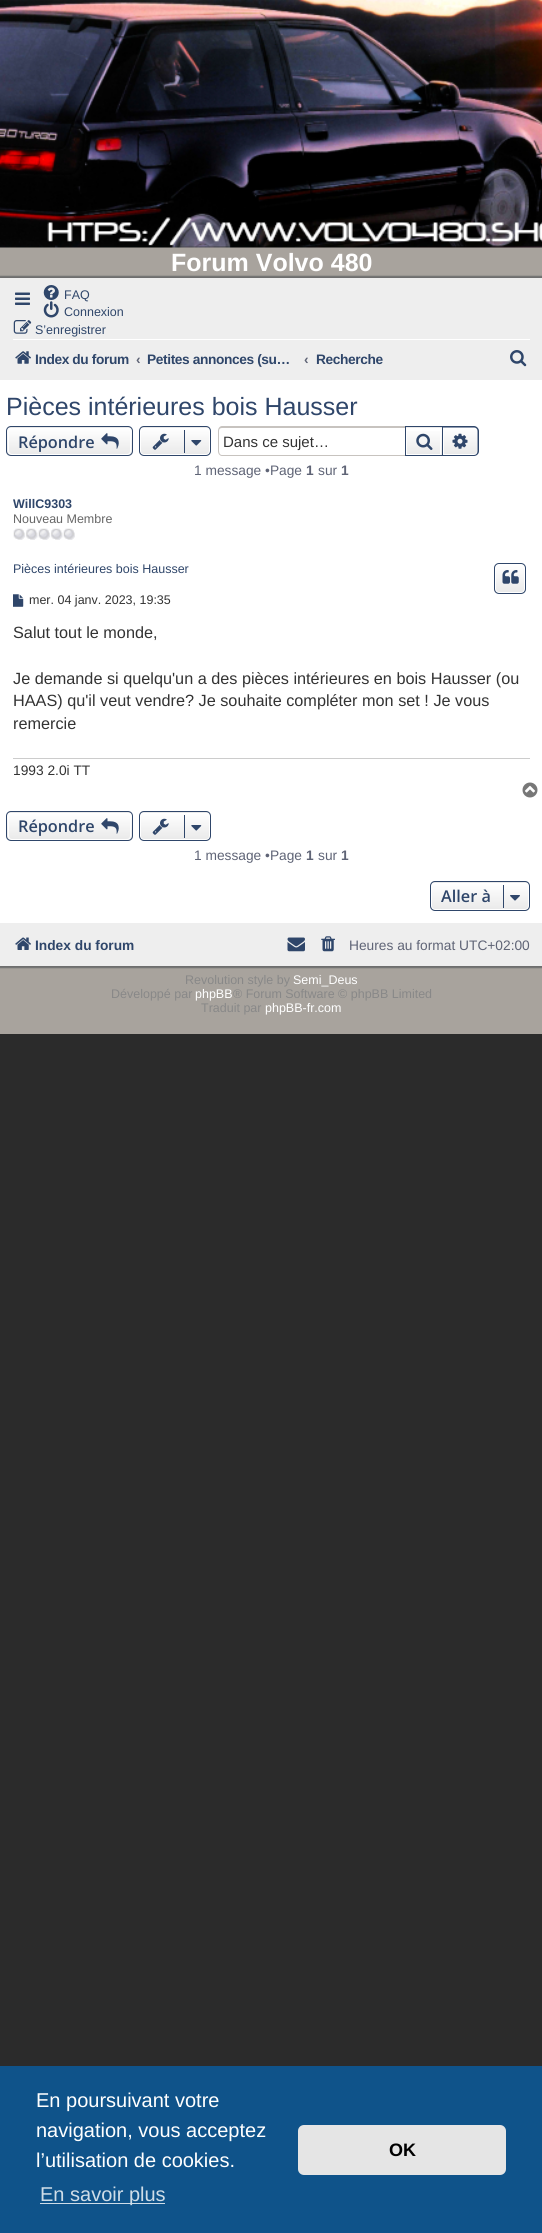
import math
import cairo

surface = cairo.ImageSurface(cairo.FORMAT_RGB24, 542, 2233)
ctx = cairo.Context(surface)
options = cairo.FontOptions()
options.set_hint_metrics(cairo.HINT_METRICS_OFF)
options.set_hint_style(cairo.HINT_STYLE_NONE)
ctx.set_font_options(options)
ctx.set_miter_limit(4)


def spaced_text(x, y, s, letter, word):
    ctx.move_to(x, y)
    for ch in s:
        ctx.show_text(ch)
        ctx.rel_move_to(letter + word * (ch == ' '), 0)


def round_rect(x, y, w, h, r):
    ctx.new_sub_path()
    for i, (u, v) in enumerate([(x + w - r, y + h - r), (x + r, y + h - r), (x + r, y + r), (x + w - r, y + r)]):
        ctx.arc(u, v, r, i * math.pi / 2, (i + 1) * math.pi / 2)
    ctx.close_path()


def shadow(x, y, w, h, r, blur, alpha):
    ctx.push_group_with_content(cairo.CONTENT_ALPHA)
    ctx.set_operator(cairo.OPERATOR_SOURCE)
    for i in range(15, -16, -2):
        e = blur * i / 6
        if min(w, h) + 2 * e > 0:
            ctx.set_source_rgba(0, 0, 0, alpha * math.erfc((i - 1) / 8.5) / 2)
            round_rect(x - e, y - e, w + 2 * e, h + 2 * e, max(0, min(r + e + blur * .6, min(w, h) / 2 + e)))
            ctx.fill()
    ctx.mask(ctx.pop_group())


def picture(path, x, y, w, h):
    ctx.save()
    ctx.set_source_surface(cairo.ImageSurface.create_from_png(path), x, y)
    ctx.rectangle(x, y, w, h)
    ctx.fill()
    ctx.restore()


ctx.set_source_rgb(0.169, 0.169, 0.169)
ctx.paint()
ctx.set_source_rgb(0.659, 0.639, 0.616)
ctx.rectangle(0, 247, 542, 787)
ctx.fill()
picture("img1.png", 0, 0, 542, 248)
ctx.select_font_face("Liberation Sans", cairo.FONT_SLANT_NORMAL, cairo.FONT_WEIGHT_BOLD)
ctx.set_font_size(25)
ctx.set_source_rgb(1, 1, 1)
ctx.move_to(171, 271)
ctx.show_text("Forum Volvo 480")
ctx.set_source_rgb(0.431, 0.431, 0.431)
shadow(-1, 276, 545, 692, 0, 0.5, 1)
ctx.set_source_rgb(1, 1, 1)
ctx.rectangle(0, 380, 542, 543)
ctx.fill()
ctx.set_source_rgb(0.933, 0.933, 0.933)
ctx.rectangle(0, 278, 542, 102)
ctx.fill()
picture("img2.png", 15, 292, 15, 13)
picture("img3.png", 43, 285, 16, 15)
ctx.select_font_face("Liberation Sans")
ctx.set_font_size(12.5)
ctx.set_source_rgb(0.184, 0.275, 0.416)
ctx.move_to(64, 299)
ctx.show_text("FAQ")
picture("img4.png", 43, 301, 16, 17)
ctx.move_to(64, 316)
ctx.show_text("Connexion")
picture("img5.png", 13, 320, 19, 14)
ctx.move_to(35, 334)
ctx.show_text("S’enregistrer")
ctx.set_source_rgb(1, 1, 1)
ctx.rectangle(13, 339, 517, 1)
ctx.fill()
picture("img6.png", 15, 351, 16, 13)
ctx.select_font_face("Liberation Sans", cairo.FONT_SLANT_NORMAL, cairo.FONT_WEIGHT_BOLD)
ctx.set_font_size(13.75)
ctx.set_source_rgb(0.184, 0.275, 0.416)
spaced_text(35, 364, "Index du forum", -0.4, 0)
ctx.set_source_rgb(0.373, 0.392, 0.463)
ctx.move_to(136, 364)
ctx.show_text("‹")
ctx.set_source_rgb(0.184, 0.275, 0.416)
spaced_text(147, 364, "Petites annonces (su…", -0.4, 0)
ctx.set_source_rgb(0.373, 0.392, 0.463)
ctx.move_to(304, 364)
ctx.show_text("‹")
ctx.set_source_rgb(0.184, 0.275, 0.416)
spaced_text(316, 364, "Recherche", -0.4, 0)
picture("img7.png", 510, 350, 17, 17)
ctx.select_font_face("Liberation Sans")
ctx.set_font_size(25)
ctx.move_to(6, 415)
ctx.show_text("Pièces intérieures bois Hausser")
ctx.save()
round_rect(6, 426, 127, 30, 5)
ctx.clip()
gradient = cairo.LinearGradient(69, 400, 69, 428)
gradient.add_color_stop_rgba(0, 1, 1, 1, 1)
gradient.add_color_stop_rgba(1, 0.914, 0.914, 0.914, 1)
ctx.set_source(gradient)
ctx.rectangle(6, 426, 127, 2)
ctx.fill()
gradient = cairo.LinearGradient(69, 428, 69, 455)
gradient.add_color_stop_rgba(0, 1, 1, 1, 1)
gradient.add_color_stop_rgba(1, 0.914, 0.914, 0.914, 1)
ctx.set_source(gradient)
ctx.rectangle(6, 428, 127, 27)
ctx.fill()
ctx.restore()
round_rect(8.5, 428.5, 122, 26, 3.5)
ctx.set_source_rgb(1, 1, 1)
ctx.set_line_width(1)
ctx.stroke()
round_rect(6.5, 426.5, 126, 29, 4.5)
ctx.set_source_rgb(0.184, 0.275, 0.416)
ctx.stroke()
ctx.select_font_face("Open Sans SemiBold")
ctx.set_font_size(16.25)
ctx.move_to(18, 448)
ctx.show_text("Répondre")
picture("img8.png", 101, 433, 18, 16)
ctx.save()
round_rect(139, 426, 72, 30, 5)
ctx.clip()
gradient = cairo.LinearGradient(175, 400, 175, 428)
gradient.add_color_stop_rgba(0, 1, 1, 1, 1)
gradient.add_color_stop_rgba(1, 0.914, 0.914, 0.914, 1)
ctx.set_source(gradient)
ctx.rectangle(139, 426, 72, 2)
ctx.fill()
gradient = cairo.LinearGradient(175, 428, 175, 455)
gradient.add_color_stop_rgba(0, 1, 1, 1, 1)
gradient.add_color_stop_rgba(1, 0.914, 0.914, 0.914, 1)
ctx.set_source(gradient)
ctx.rectangle(139, 428, 72, 27)
ctx.fill()
ctx.restore()
round_rect(140.5, 428.5, 69, 26, 3.5)
ctx.set_source_rgb(1, 1, 1)
ctx.stroke()
round_rect(139.5, 426.5, 71, 29, 4.5)
ctx.set_source_rgb(0.184, 0.275, 0.416)
ctx.stroke()
picture("img9.png", 152, 433, 17, 17)
ctx.rectangle(184, 430, 1, 23)
ctx.fill()
picture("img10.png", 191, 440, 11, 6)
ctx.set_source_rgb(0.78, 0.765, 0.749)
ctx.set_fill_rule(cairo.FILL_RULE_EVEN_ODD)
ctx.new_path()
ctx.move_to(222, 426)
ctx.line_to(405, 426)
ctx.line_to(405, 456)
ctx.line_to(222, 456)
ctx.curve_to(220, 456, 218, 454, 218, 451)
ctx.line_to(218, 431)
ctx.curve_to(218, 428, 220, 426, 222, 426)
ctx.close_path()
ctx.move_to(222, 428)
ctx.line_to(405, 428)
ctx.line_to(405, 455)
ctx.line_to(222, 455)
ctx.curve_to(220, 455, 219, 453, 219, 451)
ctx.line_to(219, 431)
ctx.curve_to(219, 429, 220, 428, 222, 428)
ctx.close_path()
ctx.fill()
ctx.select_font_face("Liberation Sans")
ctx.set_font_size(15)
ctx.set_source_rgb(0.2, 0.2, 0.2)
ctx.move_to(223, 447)
ctx.show_text("Dans ce sujet…")
ctx.set_source_rgb(0.914, 0.914, 0.914)
ctx.rectangle(406, 427, 36, 1)
ctx.fill()
gradient = cairo.LinearGradient(424, 428, 424, 455)
gradient.add_color_stop_rgba(0, 1, 1, 1, 1)
gradient.add_color_stop_rgba(1, 0.914, 0.914, 0.914, 1)
ctx.set_source(gradient)
ctx.rectangle(407, 431, 35, 24)
ctx.fill()
ctx.rectangle(406.5, 428.5, 34, 26)
ctx.set_source_rgb(1, 1, 1)
ctx.stroke()
ctx.rectangle(405.5, 426.5, 37, 29)
ctx.set_source_rgb(0.184, 0.275, 0.416)
ctx.stroke()
picture("img11.png", 416, 433, 17, 17)
gradient = cairo.LinearGradient(460, 428, 460, 455)
gradient.add_color_stop_rgba(0, 1, 1, 1, 1)
gradient.add_color_stop_rgba(1, 0.914, 0.914, 0.914, 1)
ctx.set_source(gradient)
ctx.new_path()
ctx.move_to(443.5, 428.5)
ctx.line_to(474, 428.5)
ctx.curve_to(476, 428.5, 477.5, 430, 477.5, 432)
ctx.line_to(477.5, 451)
ctx.curve_to(477.5, 453, 476, 454.5, 474, 454.5)
ctx.line_to(443.5, 454.5)
ctx.close_path()
ctx.fill_preserve()
ctx.set_source_rgb(1, 1, 1)
ctx.stroke()
ctx.set_source_rgb(0.184, 0.275, 0.416)
ctx.new_path()
ctx.move_to(442.5, 426)
ctx.line_to(474, 426)
ctx.curve_to(476.5, 426, 479, 428.5, 479, 431)
ctx.line_to(479, 451)
ctx.curve_to(479, 454, 476.5, 456, 474, 456)
ctx.line_to(442.5, 456)
ctx.close_path()
ctx.move_to(442.5, 427.5)
ctx.line_to(474, 427.5)
ctx.curve_to(476, 427.5, 477.5, 429, 477.5, 431)
ctx.line_to(477.5, 451)
ctx.curve_to(477.5, 453.5, 476, 455, 474, 455)
ctx.line_to(442.5, 455)
ctx.close_path()
ctx.fill()
picture("img12.png", 452, 433, 16, 16)
ctx.set_font_size(13.75)
ctx.set_source_rgb(0.373, 0.392, 0.463)
ctx.move_to(194, 475)
ctx.show_text("1 message •Page")
ctx.select_font_face("Liberation Sans", cairo.FONT_SLANT_NORMAL, cairo.FONT_WEIGHT_BOLD)
ctx.move_to(306, 475)
ctx.show_text("1")
ctx.select_font_face("Liberation Sans")
ctx.move_to(318, 475)
ctx.show_text("sur")
ctx.select_font_face("Liberation Sans", cairo.FONT_SLANT_NORMAL, cairo.FONT_WEIGHT_BOLD)
ctx.move_to(341, 475)
ctx.show_text("1")
ctx.set_font_size(12.5)
ctx.set_source_rgb(0.184, 0.275, 0.416)
ctx.move_to(13, 508)
ctx.show_text("WillC9303")
ctx.select_font_face("Liberation Sans")
ctx.set_source_rgb(0.4, 0.4, 0.4)
ctx.move_to(13, 523)
ctx.show_text("Nouveau Membre")
picture("img13.png", 13, 528, 62, 12)
ctx.set_source_rgb(0.184, 0.275, 0.416)
ctx.move_to(13, 573)
ctx.show_text("Pièces intérieures bois Hausser")
ctx.save()
ctx.set_fill_rule(cairo.FILL_RULE_WINDING)
round_rect(494, 563, 32, 31, 5)
ctx.clip()
gradient = cairo.LinearGradient(510, 564, 510, 593)
gradient.add_color_stop_rgba(0, 1, 1, 1, 1)
gradient.add_color_stop_rgba(1, 0.914, 0.914, 0.914, 1)
ctx.set_source(gradient)
ctx.rectangle(494, 564, 32, 29)
ctx.fill()
ctx.restore()
round_rect(495.5, 564.5, 29, 28, 3.5)
ctx.set_source_rgb(1, 1, 1)
ctx.stroke()
round_rect(494.5, 563.5, 31, 30, 4.5)
ctx.set_source_rgb(0.184, 0.275, 0.416)
ctx.stroke()
picture("img14.png", 502, 570, 17, 14)
picture("img15.png", 13, 594, 11, 13)
ctx.set_source_rgb(0.2, 0.2, 0.2)
ctx.move_to(29, 604)
ctx.show_text("mer. 04 janv. 2023, 19:35")
ctx.set_font_size(16.25)
ctx.move_to(13, 638)
ctx.show_text("Salut tout le monde,")
ctx.move_to(13, 684)
ctx.show_text("Je demande si quelqu'un a des pièces intérieures en bois Hausser (ou")
ctx.move_to(13, 706)
ctx.show_text("HAAS) qu'il veut vendre? Je souhaite compléter mon set ! Je vous")
ctx.move_to(13, 729)
ctx.show_text("remercie")
ctx.set_source_rgb(0.8, 0.8, 0.8)
ctx.rectangle(13, 758, 517, 1)
ctx.fill()
ctx.set_font_size(13.75)
ctx.set_source_rgb(0.2, 0.2, 0.2)
ctx.move_to(13, 775)
ctx.show_text("1993 2.0i TT")
picture("img16.png", 522, 782, 16, 16)
ctx.save()
ctx.set_fill_rule(cairo.FILL_RULE_WINDING)
round_rect(6, 811, 127, 30, 5)
ctx.clip()
gradient = cairo.LinearGradient(69, 785, 69, 813)
gradient.add_color_stop_rgba(0, 1, 1, 1, 1)
gradient.add_color_stop_rgba(1, 0.914, 0.914, 0.914, 1)
ctx.set_source(gradient)
ctx.rectangle(6, 811, 127, 2)
ctx.fill()
gradient = cairo.LinearGradient(69, 813, 69, 840)
gradient.add_color_stop_rgba(0, 1, 1, 1, 1)
gradient.add_color_stop_rgba(1, 0.914, 0.914, 0.914, 1)
ctx.set_source(gradient)
ctx.rectangle(6, 813, 127, 27)
ctx.fill()
ctx.restore()
round_rect(8.5, 813.5, 122, 26, 3.5)
ctx.set_source_rgb(1, 1, 1)
ctx.stroke()
round_rect(6.5, 811.5, 126, 29, 4.5)
ctx.set_source_rgb(0.184, 0.275, 0.416)
ctx.stroke()
ctx.select_font_face("Open Sans SemiBold")
ctx.set_font_size(16.25)
ctx.move_to(18, 832)
ctx.show_text("Répondre")
picture("img8.png", 101, 818, 18, 16)
ctx.save()
ctx.set_fill_rule(cairo.FILL_RULE_WINDING)
round_rect(139, 811, 72, 30, 5)
ctx.clip()
gradient = cairo.LinearGradient(175, 785, 175, 813)
gradient.add_color_stop_rgba(0, 1, 1, 1, 1)
gradient.add_color_stop_rgba(1, 0.914, 0.914, 0.914, 1)
ctx.set_source(gradient)
ctx.rectangle(139, 811, 72, 2)
ctx.fill()
gradient = cairo.LinearGradient(175, 813, 175, 840)
gradient.add_color_stop_rgba(0, 1, 1, 1, 1)
gradient.add_color_stop_rgba(1, 0.914, 0.914, 0.914, 1)
ctx.set_source(gradient)
ctx.rectangle(139, 813, 72, 27)
ctx.fill()
ctx.restore()
round_rect(140.5, 813.5, 69, 26, 3.5)
ctx.set_source_rgb(1, 1, 1)
ctx.stroke()
round_rect(139.5, 811.5, 71, 29, 4.5)
ctx.set_source_rgb(0.184, 0.275, 0.416)
ctx.stroke()
picture("img9.png", 152, 818, 17, 17)
ctx.rectangle(184, 815, 1, 23)
ctx.fill()
picture("img10.png", 191, 825, 11, 6)
ctx.select_font_face("Liberation Sans")
ctx.set_font_size(13.75)
ctx.set_source_rgb(0.373, 0.392, 0.463)
ctx.move_to(194, 860)
ctx.show_text("1 message •Page")
ctx.select_font_face("Liberation Sans", cairo.FONT_SLANT_NORMAL, cairo.FONT_WEIGHT_BOLD)
ctx.move_to(306, 860)
ctx.show_text("1")
ctx.select_font_face("Liberation Sans")
ctx.move_to(318, 860)
ctx.show_text("sur")
ctx.select_font_face("Liberation Sans", cairo.FONT_SLANT_NORMAL, cairo.FONT_WEIGHT_BOLD)
ctx.move_to(341, 860)
ctx.show_text("1")
ctx.save()
ctx.set_fill_rule(cairo.FILL_RULE_WINDING)
round_rect(430, 881, 100, 30, 5)
ctx.clip()
gradient = cairo.LinearGradient(480, 855, 480, 883)
gradient.add_color_stop_rgba(0, 1, 1, 1, 1)
gradient.add_color_stop_rgba(1, 0.914, 0.914, 0.914, 1)
ctx.set_source(gradient)
ctx.rectangle(430, 881, 100, 2)
ctx.fill()
gradient = cairo.LinearGradient(480, 883, 480, 910)
gradient.add_color_stop_rgba(0, 1, 1, 1, 1)
gradient.add_color_stop_rgba(1, 0.914, 0.914, 0.914, 1)
ctx.set_source(gradient)
ctx.rectangle(430, 883, 100, 27)
ctx.fill()
ctx.restore()
round_rect(431.5, 883.5, 97, 26, 3.5)
ctx.set_source_rgb(1, 1, 1)
ctx.stroke()
round_rect(430.5, 881.5, 99, 29, 4.5)
ctx.set_source_rgb(0.184, 0.275, 0.416)
ctx.stroke()
ctx.select_font_face("Open Sans SemiBold")
ctx.set_font_size(16.25)
ctx.move_to(441, 902)
ctx.show_text("Aller à")
ctx.rectangle(503, 885, 1, 23)
ctx.fill()
picture("img17.png", 510, 895, 10, 6)
ctx.set_source_rgb(0.933, 0.933, 0.933)
ctx.rectangle(0, 923, 542, 43)
ctx.fill()
picture("img18.png", 15, 937, 16, 13)
ctx.select_font_face("Liberation Sans", cairo.FONT_SLANT_NORMAL, cairo.FONT_WEIGHT_BOLD)
ctx.set_font_size(13.75)
ctx.set_source_rgb(0.184, 0.275, 0.416)
ctx.move_to(35, 950)
ctx.show_text("Index du forum")
picture("img19.png", 287, 937, 18, 15)
picture("img20.png", 321, 936, 14, 16)
ctx.select_font_face("Liberation Sans")
ctx.set_source_rgb(0.373, 0.392, 0.463)
ctx.move_to(349, 950)
ctx.show_text("Heures au format UTC+02:00")
ctx.set_font_size(12.5)
ctx.set_source_rgb(0.533, 0.533, 0.533)
ctx.move_to(185, 984)
ctx.show_text("Revolution style by")
ctx.set_source_rgb(1, 1, 1)
ctx.move_to(293, 984)
ctx.show_text("Semi_Deus")
ctx.set_source_rgb(0.533, 0.533, 0.533)
ctx.move_to(111, 998)
ctx.show_text("Développé par")
ctx.set_source_rgb(1, 1, 1)
ctx.move_to(195, 998)
ctx.show_text("phpBB")
ctx.set_source_rgb(0.533, 0.533, 0.533)
ctx.move_to(233, 998)
ctx.show_text("® Forum Software © phpBB Limited")
ctx.move_to(201, 1012)
ctx.show_text("Traduit par")
ctx.set_source_rgb(1, 1, 1)
ctx.move_to(265, 1012)
ctx.show_text("phpBB-fr.com")
ctx.set_source_rgb(0.059, 0.325, 0.541)
ctx.rectangle(0, 2066, 542, 167)
ctx.fill()
ctx.set_font_size(20)
ctx.set_source_rgb(1, 1, 1)
ctx.move_to(36, 2107)
ctx.show_text("En poursuivant votre")
ctx.move_to(36, 2137)
ctx.show_text("navigation, vous acceptez")
ctx.move_to(36, 2167)
ctx.show_text("l’utilisation de cookies.")
ctx.set_source_rgb(0.812, 0.867, 0.91)
ctx.rectangle(40, 2203, 125, 1)
ctx.fill()
ctx.move_to(40, 2201)
ctx.show_text("En savoir plus")
ctx.set_source_rgb(0.898, 0.898, 0.898)
round_rect(298, 2125, 208, 50, 6)
ctx.fill()
ctx.select_font_face("Liberation Sans", cairo.FONT_SLANT_NORMAL, cairo.FONT_WEIGHT_BOLD)
ctx.set_font_size(18)
ctx.set_source_rgb(0, 0, 0)
ctx.move_to(389, 2156)
ctx.show_text("OK")
surface.write_to_png("page.png")
